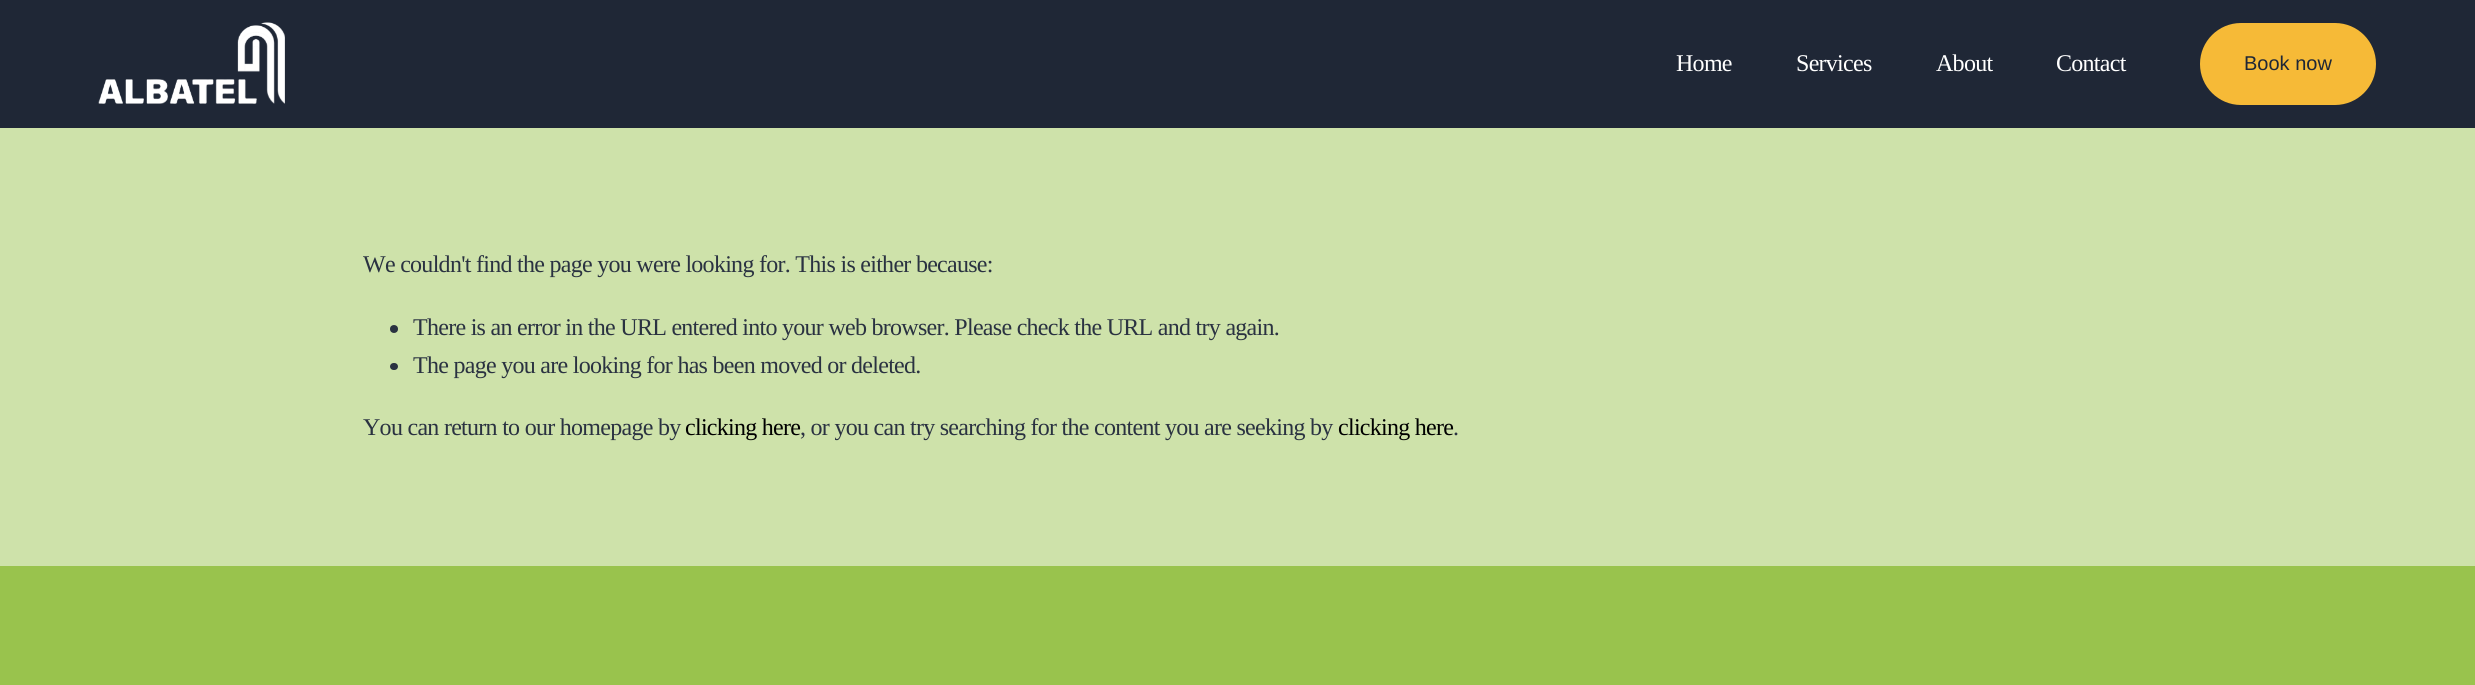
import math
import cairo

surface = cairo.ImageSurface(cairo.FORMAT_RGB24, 2475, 685)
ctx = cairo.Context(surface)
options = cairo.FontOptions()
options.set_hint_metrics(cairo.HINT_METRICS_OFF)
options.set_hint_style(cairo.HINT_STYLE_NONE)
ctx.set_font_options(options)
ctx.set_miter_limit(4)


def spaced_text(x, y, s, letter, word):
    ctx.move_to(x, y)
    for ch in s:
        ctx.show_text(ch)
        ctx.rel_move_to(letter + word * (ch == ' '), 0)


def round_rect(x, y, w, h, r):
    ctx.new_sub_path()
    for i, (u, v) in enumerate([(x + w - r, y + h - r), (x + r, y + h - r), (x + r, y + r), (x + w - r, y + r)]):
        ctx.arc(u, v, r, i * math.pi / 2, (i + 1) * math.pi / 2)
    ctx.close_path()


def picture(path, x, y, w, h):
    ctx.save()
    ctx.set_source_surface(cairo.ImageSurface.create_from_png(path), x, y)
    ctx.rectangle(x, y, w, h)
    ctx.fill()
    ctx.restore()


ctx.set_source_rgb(0.808, 0.886, 0.667)
ctx.paint()
ctx.set_source_rgb(0.122, 0.153, 0.212)
ctx.rectangle(0, 0, 2475, 128)
ctx.fill()
picture("img1.png", 98, 22, 187, 82)
ctx.select_font_face("Liberation Serif")
ctx.set_font_size(24)
ctx.set_source_rgb(1, 1, 1)
spaced_text(1676, 71, "Home", -0.72, 0)
spaced_text(1796, 71, "Services", -0.72, 0)
spaced_text(1936, 71, "About", -0.72, 0)
spaced_text(2056, 71, "Contact", -0.72, 0)
ctx.set_source_rgb(0.961, 0.729, 0.216)
round_rect(2200, 23, 176, 82, 41)
ctx.fill()
ctx.select_font_face("Liberation Sans")
ctx.set_font_size(20)
ctx.set_source_rgb(0.122, 0.153, 0.212)
ctx.move_to(2244, 70)
ctx.show_text("Book now")
ctx.select_font_face("Liberation Serif")
ctx.set_font_size(24)
ctx.set_source_rgb(0.165, 0.196, 0.255)
spaced_text(363, 272, "We couldn't find the page you were looking for. This is either because:", -0.72, 0)
ctx.new_path()
ctx.arc(394, 329, 4, 0, 2 * math.pi)
ctx.fill()
spaced_text(413, 335, "There is an error in the URL entered into your web browser. Please check the URL and try again.", -0.72, 0)
round_rect(390, 363, 8, 7, 3.5)
ctx.fill()
spaced_text(413, 373, "The page you are looking for has been moved or deleted.", -0.72, 0)
spaced_text(363, 435, "You can return to our homepage by", -0.72, 0)
ctx.set_source_rgb(0, 0, 0)
spaced_text(685, 435, "clicking here", -0.72, 0)
ctx.set_source_rgb(0.165, 0.196, 0.255)
spaced_text(800, 435, ", or you can try searching for the content you are seeking by", -0.72, 0)
ctx.set_source_rgb(0, 0, 0)
spaced_text(1338, 435, "clicking here", -0.72, 0)
ctx.set_source_rgb(0.165, 0.196, 0.255)
spaced_text(1453, 435, ".", -0.72, 0)
ctx.set_source_rgb(0.6, 0.765, 0.302)
ctx.rectangle(0, 566, 2475, 119)
ctx.fill()
surface.write_to_png("page.png")
